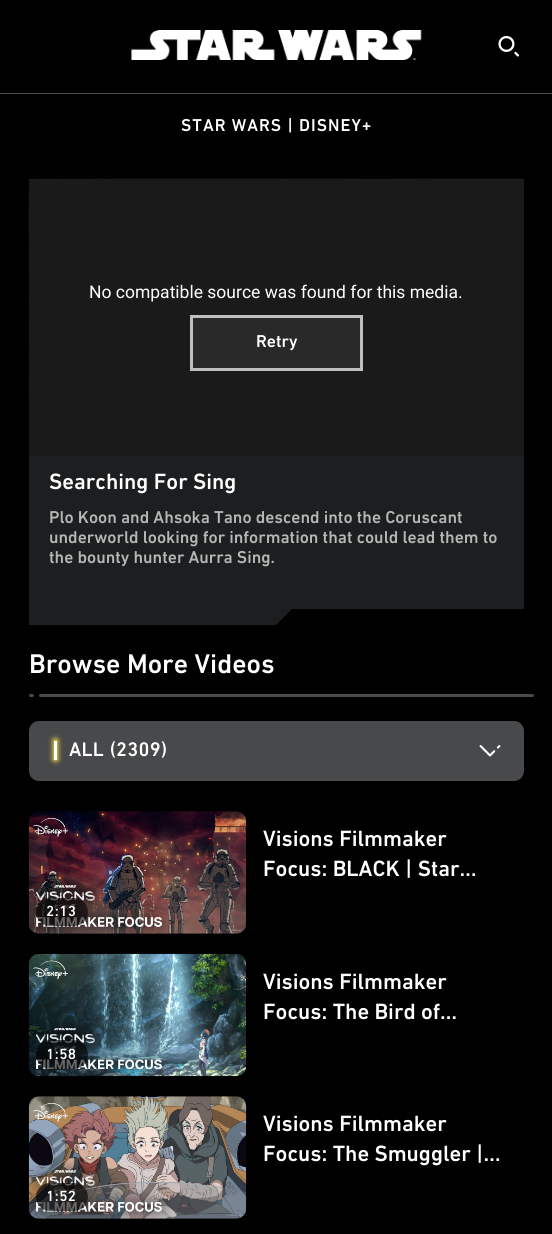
import math
import cairo

surface = cairo.ImageSurface(cairo.FORMAT_RGB24, 552, 1234)
ctx = cairo.Context(surface)
options = cairo.FontOptions()
options.set_hint_metrics(cairo.HINT_METRICS_OFF)
options.set_hint_style(cairo.HINT_STYLE_NONE)
ctx.set_font_options(options)
ctx.set_miter_limit(4)


def spaced_text(x, y, s, letter, word):
    ctx.move_to(x, y)
    for ch in s:
        ctx.show_text(ch)
        ctx.rel_move_to(letter + word * (ch == ' '), 0)


def round_rect(x, y, w, h, r):
    ctx.new_sub_path()
    for i, (u, v) in enumerate([(x + w - r, y + h - r), (x + r, y + h - r), (x + r, y + r), (x + w - r, y + r)]):
        ctx.arc(u, v, r, i * math.pi / 2, (i + 1) * math.pi / 2)
    ctx.close_path()


def shadow(x, y, w, h, r, blur, alpha):
    ctx.push_group_with_content(cairo.CONTENT_ALPHA)
    ctx.set_operator(cairo.OPERATOR_SOURCE)
    for i in range(15, -16, -2):
        e = blur * i / 6
        if min(w, h) + 2 * e > 0:
            ctx.set_source_rgba(0, 0, 0, alpha * math.erfc((i - 1) / 8.5) / 2)
            round_rect(x - e, y - e, w + 2 * e, h + 2 * e, max(0, min(r + e + blur * .6, min(w, h) / 2 + e)))
            ctx.fill()
    ctx.mask(ctx.pop_group())


def picture(path, x, y, w, h):
    ctx.save()
    ctx.set_source_surface(cairo.ImageSurface.create_from_png(path), x, y)
    ctx.rectangle(x, y, w, h)
    ctx.fill()
    ctx.restore()


ctx.set_source_rgb(0, 0, 0)
ctx.paint()
ctx.set_source_rgb(0.282, 0.286, 0.29)
ctx.rectangle(0, 93, 552, 1)
ctx.fill()
picture("img1.png", 131, 30, 291, 30)
picture("img2.png", 498, 35, 21, 22)
ctx.select_font_face("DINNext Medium")
ctx.set_font_size(17.5)
ctx.set_source_rgb(1, 1, 1)
spaced_text(181, 131, "STAR WARS | DISNEY+", 1, 0)
picture("img3.png", 28, 178, 496, 278)
ctx.set_source_rgb(0.102, 0.102, 0.102)
ctx.rectangle(29, 179, 495, 277)
ctx.fill()
ctx.select_font_face("Roboto")
ctx.set_source_rgb(1, 1, 1)
ctx.move_to(89, 298)
ctx.show_text("No compatible source was found for this media.")
ctx.set_source_rgb(0.161, 0.161, 0.161)
ctx.rectangle(191.5, 316.5, 170, 53)
ctx.fill_preserve()
ctx.set_source_rgb(0.749, 0.749, 0.749)
ctx.set_line_width(3)
ctx.stroke()
ctx.select_font_face("DINNext Medium")
ctx.set_source_rgb(1, 1, 1)
ctx.move_to(256, 347)
ctx.show_text("Retry")
ctx.set_source_rgb(0.114, 0.118, 0.122)
ctx.rectangle(29, 456, 495, 153)
ctx.fill()
ctx.set_font_size(22.5)
ctx.set_source_rgb(1, 1, 1)
ctx.move_to(49, 489)
ctx.show_text("Searching For Sing")
ctx.set_font_size(17.5)
ctx.set_source_rgb(0.71, 0.718, 0.718)
ctx.move_to(49, 523)
ctx.show_text("Plo Koon and Ahsoka Tano descend into the Coruscant")
ctx.move_to(49, 543)
ctx.show_text("underworld looking for information that could lead them to")
ctx.move_to(49, 563)
ctx.show_text("the bounty hunter Aurra Sing.")
ctx.set_source_rgb(0.114, 0.118, 0.122)
ctx.new_path()
ctx.move_to(29, 592)
ctx.line_to(309, 592)
ctx.line_to(276, 625)
ctx.line_to(29, 625)
ctx.close_path()
ctx.fill()
ctx.set_font_size(27.5)
ctx.set_source_rgb(1, 1, 1)
ctx.move_to(29, 673)
ctx.show_text("Browse More Videos")
ctx.set_source_rgb(0.282, 0.286, 0.29)
round_rect(29, 694, 5, 3, 1.5)
ctx.fill()
round_rect(39, 694, 495, 3, 1.5)
ctx.fill()
round_rect(29, 721, 495, 60, 10)
ctx.fill()
ctx.set_source_rgb(0.98, 0.871, 0.294)
shadow(53, 739, 5, 22, 2.5, 2.5, 1)
ctx.set_source_rgb(1, 1, 1)
ctx.rectangle(54, 741, 3, 19)
ctx.fill()
ctx.set_font_size(20)
spaced_text(69, 756, "ALL", 0.25, 0)
spaced_text(110, 756, "(2309)", 0.25, 0)
picture("img4.png", 479, 745, 22, 12)
ctx.set_font_size(22.5)
ctx.move_to(263, 846)
ctx.show_text("Visions Filmmaker")
ctx.move_to(263, 876)
ctx.show_text("Focus: BLACK | Star…")
ctx.set_source_rgb(0.016, 0.02, 0.02)
round_rect(29, 811, 217, 123, 10)
ctx.fill()
picture("img5.png", 28, 811, 219, 123)
ctx.set_source_rgba(0, 0, 0, 0.6)
round_rect(36, 898, 52, 28, 14)
ctx.fill()
ctx.set_font_size(15)
ctx.set_source_rgb(1, 1, 1)
spaced_text(46, 916, "2:13", 0.5, 0)
ctx.set_font_size(22.5)
ctx.move_to(263, 989)
ctx.show_text("Visions Filmmaker")
ctx.move_to(263, 1019)
ctx.show_text("Focus: The Bird of…")
picture("img6.png", 28, 953, 219, 124)
ctx.set_source_rgba(0, 0, 0, 0.6)
round_rect(36, 1040, 52, 29, 14.5)
ctx.fill()
ctx.set_font_size(15)
ctx.set_source_rgb(1, 1, 1)
spaced_text(46, 1059, "1:58", 0.5, 0)
ctx.set_font_size(22.5)
ctx.move_to(263, 1131)
ctx.show_text("Visions Filmmaker")
ctx.move_to(263, 1161)
ctx.show_text("Focus: The Smuggler |…")
ctx.set_source_rgb(0.016, 0.02, 0.02)
round_rect(29, 1096, 217, 123, 10)
ctx.fill()
picture("img7.png", 28, 1096, 219, 123)
ctx.set_source_rgba(0, 0, 0, 0.6)
round_rect(36, 1183, 52, 28, 14)
ctx.fill()
ctx.set_font_size(15)
ctx.set_source_rgb(1, 1, 1)
spaced_text(46, 1201, "1:52", 0.5, 0)
surface.write_to_png("page.png")
